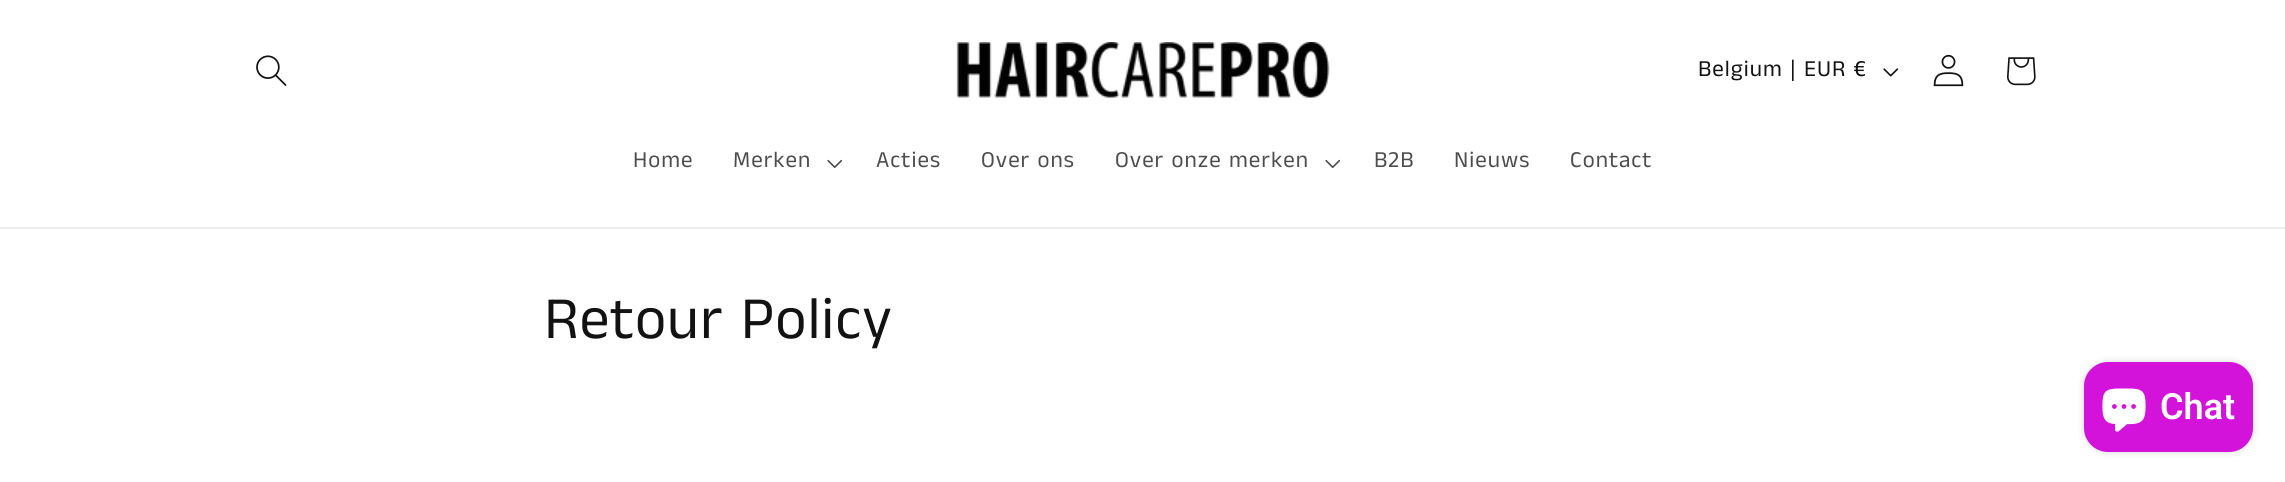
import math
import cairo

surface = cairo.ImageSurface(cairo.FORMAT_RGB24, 2285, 482)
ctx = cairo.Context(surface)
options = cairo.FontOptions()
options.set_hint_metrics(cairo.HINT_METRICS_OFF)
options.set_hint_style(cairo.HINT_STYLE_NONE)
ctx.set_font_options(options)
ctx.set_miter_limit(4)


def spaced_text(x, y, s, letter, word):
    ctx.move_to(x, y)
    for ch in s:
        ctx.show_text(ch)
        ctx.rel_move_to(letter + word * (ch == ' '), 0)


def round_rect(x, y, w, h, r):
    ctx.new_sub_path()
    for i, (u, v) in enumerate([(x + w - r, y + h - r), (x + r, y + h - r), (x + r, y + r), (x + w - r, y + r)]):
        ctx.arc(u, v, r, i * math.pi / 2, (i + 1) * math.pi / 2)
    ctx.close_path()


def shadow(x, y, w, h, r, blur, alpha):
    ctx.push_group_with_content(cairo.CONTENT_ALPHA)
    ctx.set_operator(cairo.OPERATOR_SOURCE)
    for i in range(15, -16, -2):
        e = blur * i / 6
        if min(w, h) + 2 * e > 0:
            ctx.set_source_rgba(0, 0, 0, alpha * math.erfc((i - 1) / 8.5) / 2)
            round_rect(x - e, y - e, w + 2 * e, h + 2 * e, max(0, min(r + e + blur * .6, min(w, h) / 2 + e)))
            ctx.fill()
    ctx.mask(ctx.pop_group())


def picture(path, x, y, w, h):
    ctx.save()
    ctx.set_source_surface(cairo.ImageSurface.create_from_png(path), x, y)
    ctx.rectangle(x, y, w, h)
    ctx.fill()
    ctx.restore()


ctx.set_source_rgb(1, 1, 1)
ctx.paint()
ctx.set_source_rgb(0.925, 0.925, 0.925)
ctx.rectangle(0, 227, 2285, 2)
ctx.fill()
picture("img1.png", 256, 55, 31, 31)
picture("img2.png", 956, 42, 374, 56)
ctx.select_font_face("Anek Tamil")
ctx.set_font_size(23)
ctx.set_source_rgb(0.071, 0.071, 0.071)
spaced_text(1698, 76, "Belgium | EUR €", 1, 0)
picture("img3.png", 1883, 68, 16, 9)
picture("img4.png", 1933, 54, 31, 33)
picture("img5.png", 2007, 57, 29, 29)
ctx.set_source_rgb(0.302, 0.302, 0.302)
spaced_text(633, 167, "Home", 1, 0)
spaced_text(733, 167, "Merken", 1, 0)
picture("img6.png", 827, 159, 16, 9)
spaced_text(876, 167, "Acties", 1, 0)
spaced_text(981, 167, "Over ons", 1, 0)
spaced_text(1115, 167, "Over onze merken", 1, 0)
picture("img6.png", 1325, 159, 16, 9)
spaced_text(1374, 167, "B2B", 1, 0)
spaced_text(1454, 167, "Nieuws", 1, 0)
spaced_text(1570, 167, "Contact", 1, 0)
ctx.set_font_size(60)
ctx.set_source_rgb(0.071, 0.071, 0.071)
spaced_text(544, 338, "Retour Policy", 0.9, 0)
ctx.set_source_rgb(0, 0, 0)
shadow(2084, 362, 169, 90, 24, 4, 0.15)
ctx.set_source_rgb(0.831, 0.078, 0.855)
round_rect(2084, 362, 169, 90, 24)
ctx.fill()
picture("img7.png", 2102, 388, 44, 44)
ctx.select_font_face("Roboto SemiBold")
ctx.set_font_size(36)
ctx.set_source_rgb(1, 1, 1)
ctx.move_to(2160, 419)
ctx.show_text("Chat")
surface.write_to_png("page.png")
